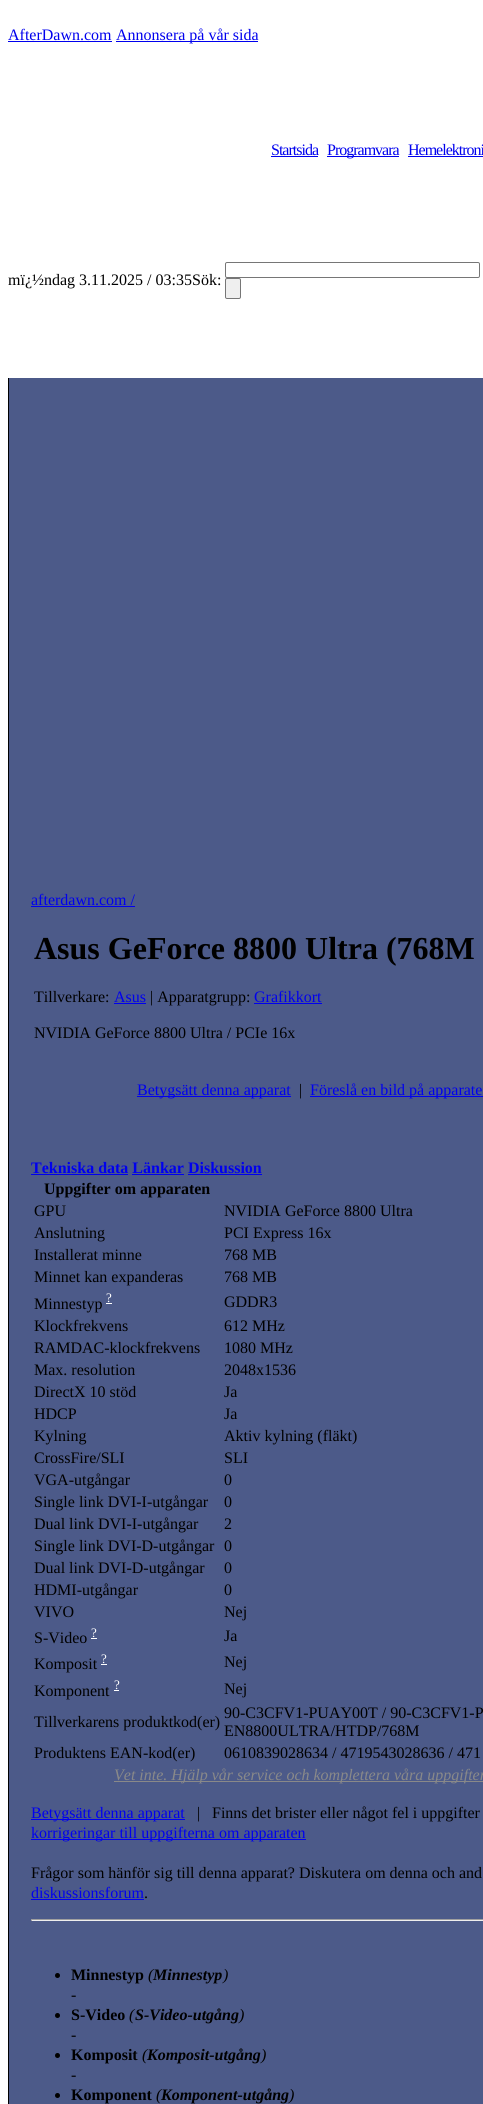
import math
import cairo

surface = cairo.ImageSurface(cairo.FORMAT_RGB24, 483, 2104)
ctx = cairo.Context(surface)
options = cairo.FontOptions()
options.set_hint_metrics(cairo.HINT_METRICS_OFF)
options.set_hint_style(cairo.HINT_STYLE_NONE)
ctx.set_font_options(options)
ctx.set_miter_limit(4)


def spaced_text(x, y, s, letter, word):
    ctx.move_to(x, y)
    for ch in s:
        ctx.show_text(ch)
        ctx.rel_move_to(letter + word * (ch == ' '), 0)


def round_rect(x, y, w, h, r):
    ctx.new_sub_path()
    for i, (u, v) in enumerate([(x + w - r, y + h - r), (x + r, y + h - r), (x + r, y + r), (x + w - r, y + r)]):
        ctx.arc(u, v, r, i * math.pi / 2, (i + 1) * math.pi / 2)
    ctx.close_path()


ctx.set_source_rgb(1, 1, 1)
ctx.paint()
ctx.select_font_face("Liberation Serif")
ctx.set_font_size(16)
ctx.set_source_rgb(0, 0, 0.933)
ctx.move_to(8, 40)
ctx.show_text("AfterDawn.com")
ctx.rectangle(8, 41, 104, 1)
ctx.fill()
ctx.rectangle(116, 41, 142, 1)
ctx.fill()
ctx.move_to(116, 40)
ctx.show_text("Annonsera på vår sida")
spaced_text(271, 155, "Startsida", -1, 0)
ctx.rectangle(271, 156, 47, 1)
ctx.fill()
ctx.rectangle(327, 156, 72, 1)
ctx.fill()
spaced_text(327, 155, "Programvara", -1, 0)
spaced_text(408, 155, "Hemelektroni", -1, 0)
ctx.rectangle(408, 156, 75, 1)
ctx.fill()
ctx.set_source_rgb(0, 0, 0)
ctx.move_to(8, 285)
ctx.show_text("mï¿½ndag 3.11.2025 / 03:35Sök:")
round_rect(225.5, 262.5, 254, 15, 1.5)
ctx.set_source_rgb(0.463, 0.463, 0.463)
ctx.set_line_width(1)
ctx.stroke()
ctx.set_source_rgb(0.937, 0.937, 0.937)
round_rect(225.5, 278.5, 15, 20, 1.5)
ctx.fill_preserve()
ctx.set_source_rgb(0.463, 0.463, 0.463)
ctx.stroke()
ctx.set_source_rgb(0.298, 0.353, 0.537)
ctx.rectangle(9, 378, 474, 1726)
ctx.fill()
ctx.set_source_rgb(0, 0, 0)
ctx.rectangle(8, 378, 1, 1726)
ctx.fill()
ctx.set_source_rgb(0, 0, 0.933)
ctx.move_to(31, 905)
ctx.show_text("afterdawn.com /")
ctx.rectangle(31, 906, 104, 1)
ctx.fill()
ctx.select_font_face("Liberation Serif", cairo.FONT_SLANT_NORMAL, cairo.FONT_WEIGHT_BOLD)
ctx.set_font_size(32)
ctx.set_source_rgb(0, 0, 0)
ctx.move_to(34, 959)
ctx.show_text("Asus GeForce 8800 Ultra (768M")
ctx.select_font_face("Liberation Serif")
ctx.set_font_size(16)
ctx.move_to(34, 1002)
ctx.show_text("Tillverkare:")
ctx.set_source_rgb(0, 0, 0.933)
ctx.move_to(114, 1002)
ctx.show_text("Asus")
ctx.rectangle(114, 1003, 32, 1)
ctx.fill()
ctx.set_source_rgb(0, 0, 0)
ctx.move_to(150, 1002)
ctx.show_text("| Apparatgrupp:")
ctx.set_source_rgb(0, 0, 0.933)
ctx.move_to(254, 1002)
ctx.show_text("Grafikkort")
ctx.rectangle(254, 1003, 68, 1)
ctx.fill()
ctx.set_source_rgb(0, 0, 0)
ctx.move_to(34, 1038)
ctx.show_text("NVIDIA GeForce 8800 Ultra / PCIe 16x")
ctx.set_source_rgb(0, 0, 0.933)
ctx.rectangle(137, 1096, 154, 1)
ctx.fill()
ctx.move_to(137, 1095)
ctx.show_text("Betygsätt denna apparat")
ctx.set_source_rgb(0, 0, 0)
ctx.move_to(299, 1095)
ctx.show_text("|")
ctx.set_source_rgb(0, 0, 0.933)
ctx.rectangle(310, 1096, 173, 1)
ctx.fill()
ctx.move_to(310, 1095)
ctx.show_text("Föreslå en bild på apparate")
ctx.select_font_face("Liberation Serif", cairo.FONT_SLANT_NORMAL, cairo.FONT_WEIGHT_BOLD)
ctx.move_to(31, 1173)
ctx.show_text("Tekniska data Länkar Diskussion")
ctx.rectangle(31, 1174, 97, 1)
ctx.fill()
ctx.rectangle(132, 1174, 52, 1)
ctx.fill()
ctx.rectangle(188, 1174, 74, 1)
ctx.fill()
ctx.set_source_rgb(0, 0, 0)
ctx.move_to(44, 1194)
ctx.show_text("Uppgifter om apparaten")
ctx.select_font_face("Liberation Serif")
ctx.move_to(34, 1216)
ctx.show_text("GPU")
ctx.move_to(224, 1216)
ctx.show_text("NVIDIA GeForce 8800 Ultra")
ctx.move_to(34, 1238)
ctx.show_text("Anslutning")
ctx.move_to(224, 1238)
ctx.show_text("PCI Express 16x")
ctx.move_to(34, 1260)
ctx.show_text("Installerat minne")
ctx.move_to(224, 1260)
ctx.show_text("768 MB")
ctx.move_to(34, 1282)
ctx.show_text("Minnet kan expanderas")
ctx.move_to(224, 1282)
ctx.show_text("768 MB")
ctx.move_to(34, 1309)
ctx.show_text("Minnestyp")
ctx.set_font_size(13)
ctx.set_source_rgb(1, 1, 1)
ctx.move_to(106, 1302)
ctx.show_text("?")
ctx.rectangle(106, 1303, 6, 1)
ctx.fill()
ctx.set_font_size(16)
ctx.set_source_rgb(0, 0, 0)
ctx.move_to(224, 1307)
ctx.show_text("GDDR3")
ctx.move_to(34, 1331)
ctx.show_text("Klockfrekvens")
ctx.move_to(224, 1331)
ctx.show_text("612 MHz")
ctx.move_to(34, 1353)
ctx.show_text("RAMDAC-klockfrekvens")
ctx.move_to(224, 1353)
ctx.show_text("1080 MHz")
ctx.move_to(34, 1375)
ctx.show_text("Max. resolution")
ctx.move_to(224, 1375)
ctx.show_text("2048x1536")
ctx.move_to(34, 1397)
ctx.show_text("DirectX 10 stöd")
ctx.move_to(224, 1397)
ctx.show_text("Ja")
ctx.move_to(34, 1419)
ctx.show_text("HDCP")
ctx.move_to(224, 1419)
ctx.show_text("Ja")
ctx.move_to(34, 1441)
ctx.show_text("Kylning")
ctx.move_to(224, 1441)
ctx.show_text("Aktiv kylning (fläkt)")
ctx.move_to(34, 1463)
ctx.show_text("CrossFire/SLI")
ctx.move_to(224, 1463)
ctx.show_text("SLI")
ctx.move_to(34, 1485)
ctx.show_text("VGA-utgångar")
ctx.move_to(224, 1485)
ctx.show_text("0")
ctx.move_to(34, 1507)
ctx.show_text("Single link DVI-I-utgångar")
ctx.move_to(224, 1507)
ctx.show_text("0")
ctx.move_to(34, 1529)
ctx.show_text("Dual link DVI-I-utgångar")
ctx.move_to(224, 1529)
ctx.show_text("2")
ctx.move_to(34, 1551)
ctx.show_text("Single link DVI-D-utgångar")
ctx.move_to(224, 1551)
ctx.show_text("0")
ctx.move_to(34, 1573)
ctx.show_text("Dual link DVI-D-utgångar")
ctx.move_to(224, 1573)
ctx.show_text("0")
ctx.move_to(34, 1595)
ctx.show_text("HDMI-utgångar")
ctx.move_to(224, 1595)
ctx.show_text("0")
ctx.move_to(34, 1617)
ctx.show_text("VIVO")
ctx.move_to(224, 1617)
ctx.show_text("Nej")
ctx.move_to(34, 1643)
ctx.show_text("S-Video")
ctx.set_font_size(13)
ctx.set_source_rgb(1, 1, 1)
ctx.move_to(91, 1637)
ctx.show_text("?")
ctx.rectangle(91, 1638, 6, 1)
ctx.fill()
ctx.set_font_size(16)
ctx.set_source_rgb(0, 0, 0)
ctx.move_to(224, 1641)
ctx.show_text("Ja")
ctx.move_to(34, 1669)
ctx.show_text("Komposit")
ctx.set_font_size(13)
ctx.set_source_rgb(1, 1, 1)
ctx.move_to(101, 1663)
ctx.show_text("?")
ctx.rectangle(101, 1664, 6, 1)
ctx.fill()
ctx.set_font_size(16)
ctx.set_source_rgb(0, 0, 0)
ctx.move_to(224, 1667)
ctx.show_text("Nej")
ctx.move_to(34, 1696)
ctx.show_text("Komponent")
ctx.set_font_size(13)
ctx.set_source_rgb(1, 1, 1)
ctx.move_to(114, 1689)
ctx.show_text("?")
ctx.rectangle(114, 1690, 5, 1)
ctx.fill()
ctx.set_font_size(16)
ctx.set_source_rgb(0, 0, 0)
ctx.move_to(224, 1694)
ctx.show_text("Nej")
ctx.move_to(34, 1727)
ctx.show_text("Tillverkarens produktkod(er)")
ctx.move_to(224, 1718)
ctx.show_text("90-C3CFV1-PUAY00T / 90-C3CFV1-P")
ctx.move_to(224, 1736)
ctx.show_text("EN8800ULTRA/HTDP/768M")
ctx.move_to(34, 1758)
ctx.show_text("Produktens EAN-kod(er)")
ctx.move_to(224, 1758)
ctx.show_text("0610839028634 / 4719543028636 / 471")
ctx.set_source_rgb(0.537, 0.537, 0.537)
ctx.rectangle(114, 1781, 369, 1)
ctx.fill()
ctx.select_font_face("Liberation Serif", cairo.FONT_SLANT_ITALIC)
ctx.move_to(114, 1780)
ctx.show_text("Vet inte. Hjälp vår service och komplettera våra uppgifter")
ctx.set_source_rgb(0, 0, 0.933)
ctx.rectangle(31, 1819, 154, 1)
ctx.fill()
ctx.select_font_face("Liberation Serif")
ctx.move_to(31, 1818)
ctx.show_text("Betygsätt denna apparat")
ctx.set_source_rgb(0, 0, 0)
ctx.move_to(197, 1818)
ctx.show_text("|")
ctx.move_to(212, 1818)
ctx.show_text("Finns det brister eller något fel i uppgifter")
ctx.set_source_rgb(0, 0, 0.933)
ctx.rectangle(31, 1839, 275, 1)
ctx.fill()
ctx.move_to(31, 1838)
ctx.show_text("korrigeringar till uppgifterna om apparaten")
ctx.set_source_rgb(0, 0, 0)
ctx.move_to(31, 1878)
ctx.show_text("Frågor som hänför sig till denna apparat? Diskutera om denna och and")
ctx.set_source_rgb(0, 0, 0.933)
ctx.move_to(31, 1898)
ctx.show_text("diskussionsforum")
ctx.rectangle(31, 1899, 113, 1)
ctx.fill()
ctx.set_source_rgb(0, 0, 0)
ctx.move_to(144, 1898)
ctx.show_text(".")
ctx.set_source_rgb(0.624, 0.624, 0.624)
ctx.rectangle(31, 1919, 452, 1)
ctx.fill()
ctx.set_source_rgb(0.933, 0.933, 0.933)
ctx.rectangle(31, 1920, 452, 1)
ctx.fill()
ctx.set_source_rgb(0.624, 0.624, 0.624)
ctx.rectangle(31, 1919, 1, 2)
ctx.fill()
ctx.set_source_rgb(0, 0, 0)
ctx.arc(57.5, 1975.5, 2.5, 0, 2 * math.pi)
ctx.fill()
ctx.select_font_face("Liberation Serif", cairo.FONT_SLANT_NORMAL, cairo.FONT_WEIGHT_BOLD)
ctx.move_to(71, 1980)
ctx.show_text("Minnestyp")
ctx.select_font_face("Liberation Serif", cairo.FONT_SLANT_ITALIC)
ctx.move_to(148, 1980)
ctx.show_text("(")
ctx.select_font_face("Liberation Serif", cairo.FONT_SLANT_ITALIC, cairo.FONT_WEIGHT_BOLD)
ctx.move_to(153, 1980)
ctx.show_text("Minnestyp")
ctx.select_font_face("Liberation Serif", cairo.FONT_SLANT_ITALIC)
ctx.move_to(223, 1980)
ctx.show_text(")")
ctx.select_font_face("Liberation Serif")
ctx.move_to(71, 2000)
ctx.show_text("-")
ctx.new_path()
ctx.arc(57.5, 2015.5, 2.5, 0, 2 * math.pi)
ctx.fill()
ctx.select_font_face("Liberation Serif", cairo.FONT_SLANT_NORMAL, cairo.FONT_WEIGHT_BOLD)
ctx.move_to(71, 2020)
ctx.show_text("S-Video")
ctx.select_font_face("Liberation Serif", cairo.FONT_SLANT_ITALIC)
ctx.move_to(129, 2020)
ctx.show_text("(")
ctx.select_font_face("Liberation Serif", cairo.FONT_SLANT_ITALIC, cairo.FONT_WEIGHT_BOLD)
ctx.move_to(135, 2020)
ctx.show_text("S-Video-utgång")
ctx.select_font_face("Liberation Serif", cairo.FONT_SLANT_ITALIC)
ctx.move_to(239, 2020)
ctx.show_text(")")
ctx.select_font_face("Liberation Serif")
ctx.move_to(71, 2040)
ctx.show_text("-")
ctx.new_path()
ctx.arc(57.5, 2055.5, 2.5, 0, 2 * math.pi)
ctx.fill()
ctx.select_font_face("Liberation Serif", cairo.FONT_SLANT_NORMAL, cairo.FONT_WEIGHT_BOLD)
ctx.move_to(71, 2060)
ctx.show_text("Komposit")
ctx.select_font_face("Liberation Serif", cairo.FONT_SLANT_ITALIC)
ctx.move_to(142, 2060)
ctx.show_text("(")
ctx.select_font_face("Liberation Serif", cairo.FONT_SLANT_ITALIC, cairo.FONT_WEIGHT_BOLD)
ctx.move_to(147, 2060)
ctx.show_text("Komposit-utgång")
ctx.select_font_face("Liberation Serif", cairo.FONT_SLANT_ITALIC)
ctx.move_to(261, 2060)
ctx.show_text(")")
ctx.select_font_face("Liberation Serif")
ctx.move_to(71, 2080)
ctx.show_text("-")
ctx.new_path()
ctx.arc(57.5, 2095.5, 2.5, 0, 2 * math.pi)
ctx.fill()
ctx.select_font_face("Liberation Serif", cairo.FONT_SLANT_NORMAL, cairo.FONT_WEIGHT_BOLD)
ctx.move_to(71, 2100)
ctx.show_text("Komponent")
ctx.select_font_face("Liberation Serif", cairo.FONT_SLANT_ITALIC)
ctx.move_to(156, 2100)
ctx.show_text("(")
ctx.select_font_face("Liberation Serif", cairo.FONT_SLANT_ITALIC, cairo.FONT_WEIGHT_BOLD)
ctx.move_to(161, 2100)
ctx.show_text("Komponent-utgång")
ctx.select_font_face("Liberation Serif", cairo.FONT_SLANT_ITALIC)
ctx.move_to(289, 2100)
ctx.show_text(")")
surface.write_to_png("page.png")
